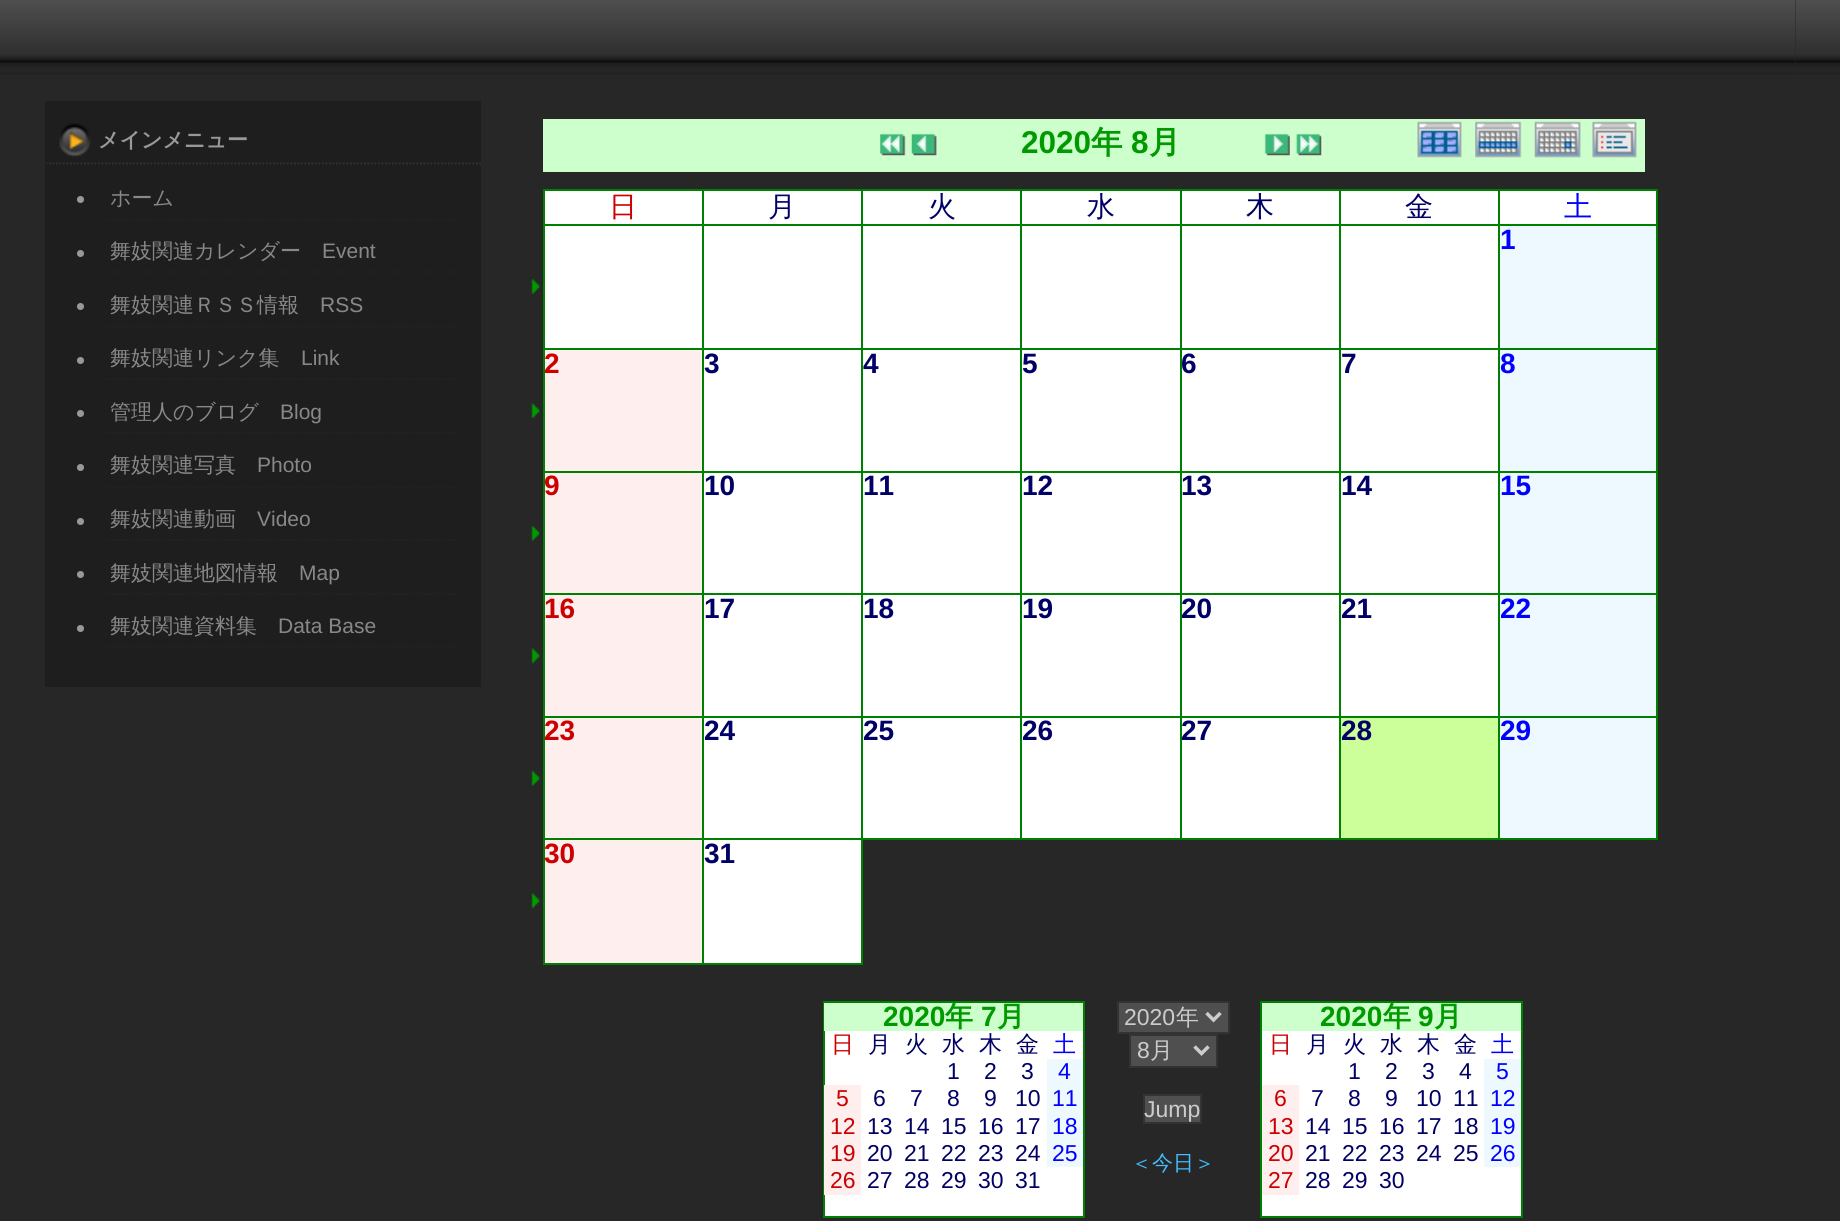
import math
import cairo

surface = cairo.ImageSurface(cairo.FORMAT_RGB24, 1840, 1221)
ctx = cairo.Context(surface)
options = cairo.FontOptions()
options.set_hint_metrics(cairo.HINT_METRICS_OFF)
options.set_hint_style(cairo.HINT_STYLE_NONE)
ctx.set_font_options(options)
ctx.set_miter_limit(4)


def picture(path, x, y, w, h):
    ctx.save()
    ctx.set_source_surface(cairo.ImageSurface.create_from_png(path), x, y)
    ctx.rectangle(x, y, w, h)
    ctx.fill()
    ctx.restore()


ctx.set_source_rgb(0.153, 0.153, 0.153)
ctx.paint()
picture("img1.png", 0, 0, 1840, 75)
ctx.set_source_rgb(0.153, 0.153, 0.153)
ctx.rectangle(46, 0, 1750, 75)
ctx.fill()
picture("img2.png", 46, 0, 1750, 75)
ctx.set_source_rgb(0.118, 0.118, 0.118)
ctx.rectangle(45, 101, 436, 586)
ctx.fill()
picture("img3.png", 59, 123, 32, 34)
ctx.save()
ctx.rectangle(46, 102, 435, 586)
ctx.clip()
ctx.new_path()
ctx.move_to(45.5, 163.5)
ctx.line_to(541, 163.5)
ctx.set_source_rgb(0.2, 0.2, 0.2)
ctx.set_line_width(1.8)
ctx.set_dash([1.75, 1.75])
ctx.stroke()
ctx.restore()
ctx.select_font_face("WenQuanYi Zen Hei", cairo.FONT_SLANT_NORMAL, cairo.FONT_WEIGHT_BOLD)
ctx.set_font_size(21)
ctx.set_source_rgb(0.6, 0.6, 0.6)
ctx.move_to(98, 147)
ctx.show_text("メインメニュー")
ctx.new_path()
ctx.arc(80.5, 199.5, 3.5, 0, 2 * math.pi)
ctx.fill()
ctx.new_path()
ctx.move_to(105, 219.5)
ctx.line_to(457, 219.5)
ctx.set_source_rgb(0.133, 0.133, 0.133)
ctx.set_line_width(1.8)
ctx.set_dash([1.75, 1.75])
ctx.stroke()
ctx.select_font_face("WenQuanYi Zen Hei Medium")
ctx.set_source_rgb(0.533, 0.533, 0.533)
ctx.move_to(110, 205)
ctx.show_text("ホーム")
ctx.set_source_rgb(0.6, 0.6, 0.6)
ctx.new_path()
ctx.arc(80.5, 253.5, 3.5, 0, 2 * math.pi)
ctx.fill()
ctx.new_path()
ctx.move_to(105, 272)
ctx.line_to(457, 272)
ctx.set_source_rgb(0.133, 0.133, 0.133)
ctx.stroke()
ctx.set_source_rgb(0.533, 0.533, 0.533)
ctx.move_to(110, 258)
ctx.show_text("舞妓関連カレンダー")
ctx.select_font_face("Liberation Sans")
ctx.move_to(322, 258)
ctx.show_text("Event")
ctx.set_source_rgb(0.6, 0.6, 0.6)
ctx.new_path()
ctx.arc(80.5, 306.5, 3.5, 0, 2 * math.pi)
ctx.fill()
ctx.new_path()
ctx.move_to(105, 326.5)
ctx.line_to(457, 326.5)
ctx.set_source_rgb(0.133, 0.133, 0.133)
ctx.stroke()
ctx.select_font_face("WenQuanYi Zen Hei Medium")
ctx.set_source_rgb(0.533, 0.533, 0.533)
ctx.move_to(110, 312)
ctx.show_text("舞妓関連ＲＳＳ情報")
ctx.select_font_face("Liberation Sans")
ctx.move_to(320, 312)
ctx.show_text("RSS")
ctx.set_source_rgb(0.6, 0.6, 0.6)
ctx.new_path()
ctx.arc(80.5, 360.5, 3.5, 0, 2 * math.pi)
ctx.fill()
ctx.new_path()
ctx.move_to(105, 379)
ctx.line_to(457, 379)
ctx.set_source_rgb(0.133, 0.133, 0.133)
ctx.stroke()
ctx.select_font_face("WenQuanYi Zen Hei Medium")
ctx.set_source_rgb(0.533, 0.533, 0.533)
ctx.move_to(110, 365)
ctx.show_text("舞妓関連リンク集")
ctx.select_font_face("Liberation Sans")
ctx.move_to(301, 365)
ctx.show_text("Link")
ctx.set_source_rgb(0.6, 0.6, 0.6)
ctx.new_path()
ctx.arc(80.5, 413.5, 3.5, 0, 2 * math.pi)
ctx.fill()
ctx.new_path()
ctx.move_to(105, 433)
ctx.line_to(457, 433)
ctx.set_source_rgb(0.133, 0.133, 0.133)
ctx.stroke()
ctx.select_font_face("WenQuanYi Zen Hei Medium")
ctx.set_source_rgb(0.533, 0.533, 0.533)
ctx.move_to(110, 419)
ctx.show_text("管理人のブログ")
ctx.select_font_face("Liberation Sans")
ctx.move_to(280, 419)
ctx.show_text("Blog")
ctx.set_source_rgb(0.6, 0.6, 0.6)
ctx.new_path()
ctx.arc(80.5, 467.5, 3.5, 0, 2 * math.pi)
ctx.fill()
ctx.new_path()
ctx.move_to(105, 487.5)
ctx.line_to(457, 487.5)
ctx.set_source_rgb(0.133, 0.133, 0.133)
ctx.stroke()
ctx.select_font_face("WenQuanYi Zen Hei Medium")
ctx.set_source_rgb(0.533, 0.533, 0.533)
ctx.move_to(110, 472)
ctx.show_text("舞妓関連写真")
ctx.select_font_face("Liberation Sans")
ctx.move_to(257, 472)
ctx.show_text("Photo")
ctx.set_source_rgb(0.6, 0.6, 0.6)
ctx.new_path()
ctx.arc(80.5, 521.5, 3.5, 0, 2 * math.pi)
ctx.fill()
ctx.new_path()
ctx.move_to(105, 540)
ctx.line_to(457, 540)
ctx.set_source_rgb(0.133, 0.133, 0.133)
ctx.stroke()
ctx.select_font_face("WenQuanYi Zen Hei Medium")
ctx.set_source_rgb(0.533, 0.533, 0.533)
ctx.move_to(110, 526)
ctx.show_text("舞妓関連動画")
ctx.select_font_face("Liberation Sans")
ctx.move_to(257, 526)
ctx.show_text("Video")
ctx.set_source_rgb(0.6, 0.6, 0.6)
ctx.new_path()
ctx.arc(80.5, 574.5, 3.5, 0, 2 * math.pi)
ctx.fill()
ctx.new_path()
ctx.move_to(105, 594)
ctx.line_to(457, 594)
ctx.set_source_rgb(0.133, 0.133, 0.133)
ctx.stroke()
ctx.select_font_face("WenQuanYi Zen Hei Medium")
ctx.set_source_rgb(0.533, 0.533, 0.533)
ctx.move_to(110, 580)
ctx.show_text("舞妓関連地図情報")
ctx.select_font_face("Liberation Sans")
ctx.move_to(299, 580)
ctx.show_text("Map")
ctx.set_source_rgb(0.6, 0.6, 0.6)
ctx.new_path()
ctx.arc(80.5, 628.5, 3.5, 0, 2 * math.pi)
ctx.fill()
ctx.new_path()
ctx.move_to(105, 646.5)
ctx.line_to(457, 646.5)
ctx.set_source_rgb(0.133, 0.133, 0.133)
ctx.stroke()
ctx.select_font_face("WenQuanYi Zen Hei Medium")
ctx.set_source_rgb(0.533, 0.533, 0.533)
ctx.move_to(110, 633)
ctx.show_text("舞妓関連資料集")
ctx.select_font_face("Liberation Sans")
ctx.move_to(278, 633)
ctx.show_text("Data Base")
ctx.set_source_rgb(0.8, 1, 0.8)
ctx.rectangle(543, 119, 1102, 53)
ctx.fill()
picture("img4.png", 880, 133, 26, 23)
picture("img5.png", 911, 133, 26, 23)
ctx.select_font_face("Liberation Sans", cairo.FONT_SLANT_NORMAL, cairo.FONT_WEIGHT_BOLD)
ctx.set_font_size(31.5)
ctx.set_source_rgb(0, 0.6, 0)
ctx.move_to(1021, 153)
ctx.show_text("2020")
ctx.select_font_face("WenQuanYi Zen Hei", cairo.FONT_SLANT_NORMAL, cairo.FONT_WEIGHT_BOLD)
ctx.move_to(1091, 153)
ctx.show_text("年")
ctx.select_font_face("Liberation Sans", cairo.FONT_SLANT_NORMAL, cairo.FONT_WEIGHT_BOLD)
ctx.move_to(1131, 153)
ctx.show_text("8")
ctx.select_font_face("WenQuanYi Zen Hei", cairo.FONT_SLANT_NORMAL, cairo.FONT_WEIGHT_BOLD)
ctx.move_to(1149, 153)
ctx.show_text("月")
picture("img6.png", 1264, 133, 26, 23)
picture("img7.png", 1296, 133, 26, 23)
picture("img8.png", 1417, 121, 45, 37)
picture("img9.png", 1475, 121, 47, 37)
picture("img10.png", 1534, 121, 47, 37)
picture("img11.png", 1592, 121, 45, 37)
ctx.set_source_rgb(1, 1, 1)
ctx.rectangle(545, 191, 157, 33)
ctx.fill()
ctx.set_source_rgb(0, 0.502, 0)
ctx.rectangle(1498, 189, 159, 2)
ctx.fill()
ctx.rectangle(1498, 224, 159, 2)
ctx.fill()
ctx.rectangle(1498, 348, 159, 2)
ctx.fill()
ctx.rectangle(1498, 471, 159, 2)
ctx.fill()
ctx.rectangle(1498, 593, 159, 2)
ctx.fill()
ctx.rectangle(1498, 716, 159, 2)
ctx.fill()
ctx.rectangle(1656, 716, 2, 124)
ctx.fill()
ctx.rectangle(1498, 838, 159, 2)
ctx.fill()
ctx.rectangle(1498, 716, 2, 124)
ctx.fill()
ctx.rectangle(1339, 716, 161, 2)
ctx.fill()
ctx.rectangle(1498, 593, 2, 125)
ctx.fill()
ctx.rectangle(1339, 593, 161, 2)
ctx.fill()
ctx.rectangle(1498, 471, 2, 124)
ctx.fill()
ctx.rectangle(1339, 471, 161, 2)
ctx.fill()
ctx.rectangle(1498, 348, 2, 125)
ctx.fill()
ctx.rectangle(1339, 348, 161, 2)
ctx.fill()
ctx.rectangle(1498, 224, 2, 126)
ctx.fill()
ctx.rectangle(1339, 224, 161, 2)
ctx.fill()
ctx.rectangle(1498, 189, 2, 37)
ctx.fill()
ctx.rectangle(1339, 189, 161, 2)
ctx.fill()
ctx.rectangle(1339, 838, 161, 2)
ctx.fill()
ctx.rectangle(1339, 716, 2, 124)
ctx.fill()
ctx.rectangle(1180, 716, 161, 2)
ctx.fill()
ctx.rectangle(1339, 593, 2, 125)
ctx.fill()
ctx.rectangle(1180, 593, 161, 2)
ctx.fill()
ctx.rectangle(1339, 471, 2, 124)
ctx.fill()
ctx.rectangle(1180, 471, 161, 2)
ctx.fill()
ctx.rectangle(1339, 348, 2, 125)
ctx.fill()
ctx.rectangle(1180, 348, 161, 2)
ctx.fill()
ctx.rectangle(1339, 224, 2, 126)
ctx.fill()
ctx.rectangle(1180, 224, 161, 2)
ctx.fill()
ctx.rectangle(1339, 189, 2, 37)
ctx.fill()
ctx.rectangle(1180, 189, 161, 2)
ctx.fill()
ctx.rectangle(1180, 838, 161, 2)
ctx.fill()
ctx.rectangle(1180, 716, 2, 124)
ctx.fill()
ctx.rectangle(1020, 716, 161, 2)
ctx.fill()
ctx.rectangle(1180, 593, 2, 125)
ctx.fill()
ctx.rectangle(1020, 593, 161, 2)
ctx.fill()
ctx.rectangle(1180, 471, 2, 124)
ctx.fill()
ctx.rectangle(1020, 471, 161, 2)
ctx.fill()
ctx.rectangle(1180, 348, 2, 125)
ctx.fill()
ctx.rectangle(1020, 348, 161, 2)
ctx.fill()
ctx.rectangle(1180, 224, 2, 126)
ctx.fill()
ctx.rectangle(1020, 224, 161, 2)
ctx.fill()
ctx.rectangle(1180, 189, 2, 37)
ctx.fill()
ctx.rectangle(1020, 189, 161, 2)
ctx.fill()
ctx.rectangle(1020, 838, 161, 2)
ctx.fill()
ctx.rectangle(1020, 716, 2, 124)
ctx.fill()
ctx.rectangle(861, 716, 161, 2)
ctx.fill()
ctx.rectangle(1020, 593, 2, 125)
ctx.fill()
ctx.rectangle(861, 593, 161, 2)
ctx.fill()
ctx.rectangle(1020, 471, 2, 124)
ctx.fill()
ctx.rectangle(861, 471, 161, 2)
ctx.fill()
ctx.rectangle(1020, 348, 2, 125)
ctx.fill()
ctx.rectangle(861, 348, 161, 2)
ctx.fill()
ctx.rectangle(1020, 224, 2, 126)
ctx.fill()
ctx.rectangle(861, 224, 161, 2)
ctx.fill()
ctx.rectangle(1020, 189, 2, 37)
ctx.fill()
ctx.rectangle(861, 189, 161, 2)
ctx.fill()
ctx.rectangle(702, 838, 161, 2)
ctx.fill()
ctx.rectangle(861, 838, 2, 126)
ctx.fill()
ctx.rectangle(861, 838, 161, 2)
ctx.fill()
ctx.rectangle(861, 716, 2, 124)
ctx.fill()
ctx.rectangle(702, 716, 161, 2)
ctx.fill()
ctx.rectangle(861, 593, 2, 125)
ctx.fill()
ctx.rectangle(702, 593, 161, 2)
ctx.fill()
ctx.rectangle(861, 471, 2, 124)
ctx.fill()
ctx.rectangle(702, 471, 161, 2)
ctx.fill()
ctx.rectangle(861, 348, 2, 125)
ctx.fill()
ctx.rectangle(702, 348, 161, 2)
ctx.fill()
ctx.rectangle(861, 224, 2, 126)
ctx.fill()
ctx.rectangle(702, 224, 161, 2)
ctx.fill()
ctx.rectangle(861, 189, 2, 37)
ctx.fill()
ctx.rectangle(702, 189, 161, 2)
ctx.fill()
ctx.rectangle(702, 963, 161, 2)
ctx.fill()
ctx.rectangle(702, 838, 2, 126)
ctx.fill()
ctx.rectangle(543, 838, 161, 2)
ctx.fill()
ctx.rectangle(702, 716, 2, 124)
ctx.fill()
ctx.rectangle(543, 716, 161, 2)
ctx.fill()
ctx.rectangle(702, 593, 2, 125)
ctx.fill()
ctx.rectangle(543, 593, 161, 2)
ctx.fill()
ctx.rectangle(702, 471, 2, 124)
ctx.fill()
ctx.rectangle(543, 471, 161, 2)
ctx.fill()
ctx.rectangle(702, 348, 2, 125)
ctx.fill()
ctx.rectangle(543, 348, 161, 2)
ctx.fill()
ctx.rectangle(702, 224, 2, 126)
ctx.fill()
ctx.rectangle(543, 224, 161, 2)
ctx.fill()
ctx.rectangle(702, 189, 2, 37)
ctx.fill()
ctx.rectangle(543, 189, 161, 2)
ctx.fill()
ctx.rectangle(543, 963, 161, 2)
ctx.fill()
ctx.rectangle(543, 838, 2, 126)
ctx.fill()
ctx.rectangle(543, 716, 2, 124)
ctx.fill()
ctx.rectangle(543, 593, 2, 125)
ctx.fill()
ctx.rectangle(543, 471, 2, 124)
ctx.fill()
ctx.rectangle(543, 348, 2, 125)
ctx.fill()
ctx.rectangle(543, 224, 2, 126)
ctx.fill()
ctx.rectangle(543, 189, 2, 37)
ctx.fill()
ctx.select_font_face("WenQuanYi Zen Hei Medium")
ctx.set_font_size(28)
ctx.set_source_rgb(0.8, 0, 0)
ctx.move_to(609, 216)
ctx.show_text("日")
ctx.set_source_rgb(1, 1, 1)
ctx.rectangle(704, 191, 157, 33)
ctx.fill()
ctx.set_source_rgb(0, 0, 0.4)
ctx.move_to(768, 216)
ctx.show_text("月")
ctx.set_source_rgb(1, 1, 1)
ctx.rectangle(863, 191, 157, 33)
ctx.fill()
ctx.set_source_rgb(0, 0, 0.4)
ctx.move_to(928, 216)
ctx.show_text("火")
ctx.set_source_rgb(1, 1, 1)
ctx.rectangle(1022, 191, 158, 33)
ctx.fill()
ctx.set_source_rgb(0, 0, 0.4)
ctx.move_to(1087, 216)
ctx.show_text("水")
ctx.set_source_rgb(1, 1, 1)
ctx.rectangle(1182, 191, 157, 33)
ctx.fill()
ctx.set_source_rgb(0, 0, 0.4)
ctx.move_to(1246, 216)
ctx.show_text("木")
ctx.set_source_rgb(1, 1, 1)
ctx.rectangle(1341, 191, 157, 33)
ctx.fill()
ctx.set_source_rgb(0, 0, 0.4)
ctx.move_to(1405, 216)
ctx.show_text("金")
ctx.set_source_rgb(1, 1, 1)
ctx.rectangle(1500, 191, 156, 33)
ctx.fill()
ctx.set_source_rgb(0, 0.502, 0)
ctx.rectangle(1656, 593, 2, 125)
ctx.fill()
ctx.rectangle(1656, 471, 2, 124)
ctx.fill()
ctx.rectangle(1656, 348, 2, 125)
ctx.fill()
ctx.rectangle(1656, 224, 2, 126)
ctx.fill()
ctx.rectangle(1656, 189, 2, 37)
ctx.fill()
ctx.set_source_rgb(0, 0, 1)
ctx.move_to(1564, 216)
ctx.show_text("土")
ctx.set_source_rgb(1, 1, 1)
ctx.rectangle(545, 226, 157, 122)
ctx.fill()
ctx.rectangle(704, 226, 157, 122)
ctx.fill()
ctx.rectangle(863, 226, 157, 122)
ctx.fill()
ctx.rectangle(1022, 226, 158, 122)
ctx.fill()
ctx.rectangle(1182, 226, 157, 122)
ctx.fill()
ctx.rectangle(1341, 226, 157, 122)
ctx.fill()
ctx.set_source_rgb(0.933, 0.969, 1)
ctx.rectangle(1500, 226, 156, 122)
ctx.fill()
ctx.select_font_face("Liberation Sans", cairo.FONT_SLANT_NORMAL, cairo.FONT_WEIGHT_BOLD)
ctx.set_source_rgb(0, 0, 1)
ctx.move_to(1500, 249)
ctx.show_text("1")
picture("img12.png", 531, 279, 9, 15)
ctx.set_source_rgb(1, 0.933, 0.933)
ctx.rectangle(545, 350, 157, 121)
ctx.fill()
ctx.set_source_rgb(0.8, 0, 0)
ctx.move_to(544, 373)
ctx.show_text("2")
ctx.set_source_rgb(1, 1, 1)
ctx.rectangle(704, 350, 157, 121)
ctx.fill()
ctx.set_source_rgb(0, 0, 0.4)
ctx.move_to(704, 373)
ctx.show_text("3")
ctx.set_source_rgb(1, 1, 1)
ctx.rectangle(863, 350, 157, 121)
ctx.fill()
ctx.set_source_rgb(0, 0, 0.4)
ctx.move_to(863, 373)
ctx.show_text("4")
ctx.set_source_rgb(1, 1, 1)
ctx.rectangle(1022, 350, 158, 121)
ctx.fill()
ctx.set_source_rgb(0, 0, 0.4)
ctx.move_to(1022, 373)
ctx.show_text("5")
ctx.set_source_rgb(1, 1, 1)
ctx.rectangle(1182, 350, 157, 121)
ctx.fill()
ctx.set_source_rgb(0, 0, 0.4)
ctx.move_to(1181, 373)
ctx.show_text("6")
ctx.set_source_rgb(1, 1, 1)
ctx.rectangle(1341, 350, 157, 121)
ctx.fill()
ctx.set_source_rgb(0, 0, 0.4)
ctx.move_to(1341, 373)
ctx.show_text("7")
ctx.set_source_rgb(0.933, 0.969, 1)
ctx.rectangle(1500, 350, 156, 121)
ctx.fill()
ctx.set_source_rgb(0, 0, 1)
ctx.move_to(1500, 373)
ctx.show_text("8")
picture("img13.png", 531, 403, 9, 16)
ctx.set_source_rgb(1, 0.933, 0.933)
ctx.rectangle(545, 473, 157, 120)
ctx.fill()
ctx.set_source_rgb(0.8, 0, 0)
ctx.move_to(544, 495)
ctx.show_text("9")
ctx.set_source_rgb(1, 1, 1)
ctx.rectangle(704, 473, 157, 120)
ctx.fill()
ctx.set_source_rgb(0, 0, 0.4)
ctx.move_to(704, 495)
ctx.show_text("10")
ctx.set_source_rgb(1, 1, 1)
ctx.rectangle(863, 473, 157, 120)
ctx.fill()
ctx.set_source_rgb(0, 0, 0.4)
ctx.move_to(863, 495)
ctx.show_text("11")
ctx.set_source_rgb(1, 1, 1)
ctx.rectangle(1022, 473, 158, 120)
ctx.fill()
ctx.set_source_rgb(0, 0, 0.4)
ctx.move_to(1022, 495)
ctx.show_text("12")
ctx.set_source_rgb(1, 1, 1)
ctx.rectangle(1182, 473, 157, 120)
ctx.fill()
ctx.set_source_rgb(0, 0, 0.4)
ctx.move_to(1181, 495)
ctx.show_text("13")
ctx.set_source_rgb(1, 1, 1)
ctx.rectangle(1341, 473, 157, 120)
ctx.fill()
ctx.set_source_rgb(0, 0, 0.4)
ctx.move_to(1341, 495)
ctx.show_text("14")
ctx.set_source_rgb(0.933, 0.969, 1)
ctx.rectangle(1500, 473, 156, 120)
ctx.fill()
ctx.set_source_rgb(0, 0, 1)
ctx.move_to(1500, 495)
ctx.show_text("15")
picture("img14.png", 531, 525, 9, 16)
ctx.set_source_rgb(1, 0.933, 0.933)
ctx.rectangle(545, 595, 157, 121)
ctx.fill()
ctx.set_source_rgb(0.8, 0, 0)
ctx.move_to(544, 618)
ctx.show_text("16")
ctx.set_source_rgb(1, 1, 1)
ctx.rectangle(704, 595, 157, 121)
ctx.fill()
ctx.set_source_rgb(0, 0, 0.4)
ctx.move_to(704, 618)
ctx.show_text("17")
ctx.set_source_rgb(1, 1, 1)
ctx.rectangle(863, 595, 157, 121)
ctx.fill()
ctx.set_source_rgb(0, 0, 0.4)
ctx.move_to(863, 618)
ctx.show_text("18")
ctx.set_source_rgb(1, 1, 1)
ctx.rectangle(1022, 595, 158, 121)
ctx.fill()
ctx.set_source_rgb(0, 0, 0.4)
ctx.move_to(1022, 618)
ctx.show_text("19")
ctx.set_source_rgb(1, 1, 1)
ctx.rectangle(1182, 595, 157, 121)
ctx.fill()
ctx.set_source_rgb(0, 0, 0.4)
ctx.move_to(1181, 618)
ctx.show_text("20")
ctx.set_source_rgb(1, 1, 1)
ctx.rectangle(1341, 595, 157, 121)
ctx.fill()
ctx.set_source_rgb(0, 0, 0.4)
ctx.move_to(1341, 618)
ctx.show_text("21")
ctx.set_source_rgb(0.933, 0.969, 1)
ctx.rectangle(1500, 595, 156, 121)
ctx.fill()
ctx.set_source_rgb(0, 0, 1)
ctx.move_to(1500, 618)
ctx.show_text("22")
picture("img13.png", 531, 648, 9, 16)
ctx.set_source_rgb(1, 0.933, 0.933)
ctx.rectangle(545, 718, 157, 120)
ctx.fill()
ctx.set_source_rgb(0.8, 0, 0)
ctx.move_to(544, 740)
ctx.show_text("23")
ctx.set_source_rgb(1, 1, 1)
ctx.rectangle(704, 718, 157, 120)
ctx.fill()
ctx.set_source_rgb(0, 0, 0.4)
ctx.move_to(704, 740)
ctx.show_text("24")
ctx.set_source_rgb(1, 1, 1)
ctx.rectangle(863, 718, 157, 120)
ctx.fill()
ctx.set_source_rgb(0, 0, 0.4)
ctx.move_to(863, 740)
ctx.show_text("25")
ctx.set_source_rgb(1, 1, 1)
ctx.rectangle(1022, 718, 158, 120)
ctx.fill()
ctx.set_source_rgb(0, 0, 0.4)
ctx.move_to(1022, 740)
ctx.show_text("26")
ctx.set_source_rgb(1, 1, 1)
ctx.rectangle(1182, 718, 157, 120)
ctx.fill()
ctx.set_source_rgb(0, 0, 0.4)
ctx.move_to(1181, 740)
ctx.show_text("27")
ctx.set_source_rgb(0.8, 1, 0.6)
ctx.rectangle(1341, 718, 157, 120)
ctx.fill()
ctx.set_source_rgb(0, 0, 0.4)
ctx.move_to(1341, 740)
ctx.show_text("28")
ctx.set_source_rgb(0.933, 0.969, 1)
ctx.rectangle(1500, 718, 156, 120)
ctx.fill()
ctx.set_source_rgb(0, 0, 1)
ctx.move_to(1500, 740)
ctx.show_text("29")
picture("img14.png", 531, 770, 9, 16)
ctx.set_source_rgb(1, 0.933, 0.933)
ctx.rectangle(545, 840, 157, 123)
ctx.fill()
ctx.set_source_rgb(0.8, 0, 0)
ctx.move_to(544, 863)
ctx.show_text("30")
ctx.set_source_rgb(1, 1, 1)
ctx.rectangle(704, 840, 157, 123)
ctx.fill()
ctx.set_source_rgb(0, 0, 0.4)
ctx.move_to(704, 863)
ctx.show_text("31")
picture("img13.png", 531, 893, 9, 16)
ctx.set_source_rgb(1, 1, 1)
ctx.rectangle(825, 1031, 258, 185)
ctx.fill()
ctx.rectangle(824, 1002, 260, 215)
ctx.set_source_rgb(0, 0.502, 0)
ctx.set_line_width(2)
ctx.set_dash([])
ctx.stroke()
ctx.set_source_rgb(0.8, 1, 0.8)
ctx.rectangle(824, 1003, 259, 28)
ctx.fill()
ctx.set_source_rgb(0, 0.6, 0)
ctx.move_to(883, 1026)
ctx.show_text("2020")
ctx.select_font_face("WenQuanYi Zen Hei", cairo.FONT_SLANT_NORMAL, cairo.FONT_WEIGHT_BOLD)
ctx.move_to(945, 1026)
ctx.show_text("年")
ctx.select_font_face("Liberation Sans", cairo.FONT_SLANT_NORMAL, cairo.FONT_WEIGHT_BOLD)
ctx.move_to(981, 1026)
ctx.show_text("7")
ctx.select_font_face("WenQuanYi Zen Hei", cairo.FONT_SLANT_NORMAL, cairo.FONT_WEIGHT_BOLD)
ctx.move_to(997, 1026)
ctx.show_text("月")
ctx.select_font_face("WenQuanYi Zen Hei Medium")
ctx.set_font_size(23)
ctx.set_source_rgb(0.8, 0, 0)
ctx.move_to(831, 1052)
ctx.show_text("日")
ctx.set_source_rgb(0, 0, 0.4)
ctx.move_to(868, 1052)
ctx.show_text("月")
ctx.move_to(905, 1052)
ctx.show_text("火")
ctx.move_to(942, 1052)
ctx.show_text("水")
ctx.move_to(979, 1052)
ctx.show_text("木")
ctx.move_to(1016, 1052)
ctx.show_text("金")
ctx.set_source_rgb(0, 0, 1)
ctx.move_to(1053, 1052)
ctx.show_text("土")
ctx.select_font_face("Liberation Sans")
ctx.set_source_rgb(0, 0, 0.4)
ctx.move_to(947, 1079)
ctx.show_text("1")
ctx.move_to(984, 1079)
ctx.show_text("2")
ctx.move_to(1021, 1079)
ctx.show_text("3")
ctx.set_source_rgb(0.933, 0.969, 1)
ctx.rectangle(1047, 1059, 36, 108)
ctx.fill()
ctx.set_source_rgb(0, 0, 1)
ctx.move_to(1058, 1079)
ctx.show_text("4")
ctx.set_source_rgb(1, 0.933, 0.933)
ctx.rectangle(824, 1085, 37, 110)
ctx.fill()
ctx.set_source_rgb(0.8, 0, 0)
ctx.move_to(836, 1106)
ctx.show_text("5")
ctx.set_source_rgb(0, 0, 0.4)
ctx.move_to(873, 1106)
ctx.show_text("6")
ctx.move_to(910, 1106)
ctx.show_text("7")
ctx.move_to(947, 1106)
ctx.show_text("8")
ctx.move_to(984, 1106)
ctx.show_text("9")
ctx.move_to(1015, 1106)
ctx.show_text("10")
ctx.set_source_rgb(0, 0, 1)
ctx.move_to(1052, 1106)
ctx.show_text("11")
ctx.set_source_rgb(0.8, 0, 0)
ctx.move_to(830, 1134)
ctx.show_text("12")
ctx.set_source_rgb(0, 0, 0.4)
ctx.move_to(867, 1134)
ctx.show_text("13")
ctx.move_to(904, 1134)
ctx.show_text("14")
ctx.move_to(941, 1134)
ctx.show_text("15")
ctx.move_to(978, 1134)
ctx.show_text("16")
ctx.move_to(1015, 1134)
ctx.show_text("17")
ctx.set_source_rgb(0, 0, 1)
ctx.move_to(1052, 1134)
ctx.show_text("18")
ctx.set_source_rgb(0.8, 0, 0)
ctx.move_to(830, 1161)
ctx.show_text("19")
ctx.set_source_rgb(0, 0, 0.4)
ctx.move_to(867, 1161)
ctx.show_text("20")
ctx.move_to(904, 1161)
ctx.show_text("21")
ctx.move_to(941, 1161)
ctx.show_text("22")
ctx.move_to(978, 1161)
ctx.show_text("23")
ctx.move_to(1015, 1161)
ctx.show_text("24")
ctx.set_source_rgb(0, 0, 1)
ctx.move_to(1052, 1161)
ctx.show_text("25")
ctx.set_source_rgb(0.8, 0, 0)
ctx.move_to(830, 1188)
ctx.show_text("26")
ctx.set_source_rgb(0, 0, 0.4)
ctx.move_to(867, 1188)
ctx.show_text("27")
ctx.move_to(904, 1188)
ctx.show_text("28")
ctx.move_to(941, 1188)
ctx.show_text("29")
ctx.move_to(978, 1188)
ctx.show_text("30")
ctx.move_to(1015, 1188)
ctx.show_text("31")
ctx.set_source_rgb(0.31, 0.31, 0.31)
ctx.rectangle(1118, 1002, 111, 31)
ctx.fill_preserve()
ctx.set_source_rgb(0.2, 0.2, 0.2)
ctx.stroke()
ctx.new_path()
ctx.move_to(1206.5, 1013)
ctx.line_to(1213.5, 1020)
ctx.line_to(1220.5, 1013)
ctx.set_source_rgb(0.8, 0.8, 0.8)
ctx.set_line_width(3.5)
ctx.stroke()
ctx.move_to(1124, 1025)
ctx.show_text("2020")
ctx.select_font_face("WenQuanYi Zen Hei Medium")
ctx.move_to(1176, 1025)
ctx.show_text("年")
ctx.set_source_rgb(0.31, 0.31, 0.31)
ctx.rectangle(1130, 1035, 87, 32)
ctx.fill_preserve()
ctx.set_source_rgb(0.2, 0.2, 0.2)
ctx.set_line_width(2)
ctx.stroke()
ctx.new_path()
ctx.move_to(1194.5, 1046.5)
ctx.line_to(1201.5, 1053.5)
ctx.line_to(1208.5, 1046.5)
ctx.set_source_rgb(0.8, 0.8, 0.8)
ctx.set_line_width(3.5)
ctx.stroke()
ctx.save()
ctx.rectangle(1138, 1036, 50, 30)
ctx.clip()
ctx.select_font_face("Liberation Sans")
ctx.move_to(1137, 1058)
ctx.show_text("8")
ctx.restore()
ctx.move_to(1150, 1058)
ctx.show_text("月")
ctx.set_source_rgb(0.31, 0.31, 0.31)
ctx.rectangle(1144, 1095, 57, 28)
ctx.fill_preserve()
ctx.set_source_rgb(0.2, 0.2, 0.2)
ctx.set_line_width(2)
ctx.stroke()
ctx.select_font_face("Liberation Sans")
ctx.set_source_rgb(0.8, 0.8, 0.8)
ctx.move_to(1144, 1117)
ctx.show_text("Jump")
ctx.select_font_face("WenQuanYi Zen Hei Medium")
ctx.set_font_size(21)
ctx.set_source_rgb(0.255, 0.749, 1)
ctx.move_to(1131, 1170)
ctx.show_text("＜今日＞")
ctx.set_source_rgb(1, 1, 1)
ctx.rectangle(1262, 1031, 259, 185)
ctx.fill()
ctx.rectangle(1261, 1002, 261, 215)
ctx.set_source_rgb(0, 0.502, 0)
ctx.stroke()
ctx.set_source_rgb(0.8, 1, 0.8)
ctx.rectangle(1262, 1003, 259, 28)
ctx.fill()
ctx.select_font_face("Liberation Sans", cairo.FONT_SLANT_NORMAL, cairo.FONT_WEIGHT_BOLD)
ctx.set_font_size(28)
ctx.set_source_rgb(0, 0.6, 0)
ctx.move_to(1320, 1026)
ctx.show_text("2020")
ctx.select_font_face("WenQuanYi Zen Hei", cairo.FONT_SLANT_NORMAL, cairo.FONT_WEIGHT_BOLD)
ctx.move_to(1383, 1026)
ctx.show_text("年")
ctx.select_font_face("Liberation Sans", cairo.FONT_SLANT_NORMAL, cairo.FONT_WEIGHT_BOLD)
ctx.move_to(1418, 1026)
ctx.show_text("9")
ctx.select_font_face("WenQuanYi Zen Hei", cairo.FONT_SLANT_NORMAL, cairo.FONT_WEIGHT_BOLD)
ctx.move_to(1434, 1026)
ctx.show_text("月")
ctx.select_font_face("WenQuanYi Zen Hei Medium")
ctx.set_font_size(23)
ctx.set_source_rgb(0.8, 0, 0)
ctx.move_to(1269, 1052)
ctx.show_text("日")
ctx.set_source_rgb(0, 0, 0.4)
ctx.move_to(1306, 1052)
ctx.show_text("月")
ctx.move_to(1343, 1052)
ctx.show_text("火")
ctx.move_to(1380, 1052)
ctx.show_text("水")
ctx.move_to(1417, 1052)
ctx.show_text("木")
ctx.move_to(1454, 1052)
ctx.show_text("金")
ctx.set_source_rgb(0, 0, 1)
ctx.move_to(1491, 1052)
ctx.show_text("土")
ctx.select_font_face("Liberation Sans")
ctx.set_source_rgb(0, 0, 0.4)
ctx.move_to(1348, 1079)
ctx.show_text("1")
ctx.move_to(1385, 1079)
ctx.show_text("2")
ctx.move_to(1422, 1079)
ctx.show_text("3")
ctx.move_to(1459, 1079)
ctx.show_text("4")
ctx.set_source_rgb(0.933, 0.969, 1)
ctx.rectangle(1484, 1059, 37, 108)
ctx.fill()
ctx.set_source_rgb(0, 0, 1)
ctx.move_to(1496, 1079)
ctx.show_text("5")
ctx.set_source_rgb(1, 0.933, 0.933)
ctx.rectangle(1262, 1085, 37, 110)
ctx.fill()
ctx.set_source_rgb(0.8, 0, 0)
ctx.move_to(1274, 1106)
ctx.show_text("6")
ctx.set_source_rgb(0, 0, 0.4)
ctx.move_to(1311, 1106)
ctx.show_text("7")
ctx.move_to(1348, 1106)
ctx.show_text("8")
ctx.move_to(1385, 1106)
ctx.show_text("9")
ctx.move_to(1416, 1106)
ctx.show_text("10")
ctx.move_to(1453, 1106)
ctx.show_text("11")
ctx.set_source_rgb(0, 0, 1)
ctx.move_to(1490, 1106)
ctx.show_text("12")
ctx.set_source_rgb(0.8, 0, 0)
ctx.move_to(1268, 1134)
ctx.show_text("13")
ctx.set_source_rgb(0, 0, 0.4)
ctx.move_to(1305, 1134)
ctx.show_text("14")
ctx.move_to(1342, 1134)
ctx.show_text("15")
ctx.move_to(1379, 1134)
ctx.show_text("16")
ctx.move_to(1416, 1134)
ctx.show_text("17")
ctx.move_to(1453, 1134)
ctx.show_text("18")
ctx.set_source_rgb(0, 0, 1)
ctx.move_to(1490, 1134)
ctx.show_text("19")
ctx.set_source_rgb(0.8, 0, 0)
ctx.move_to(1268, 1161)
ctx.show_text("20")
ctx.set_source_rgb(0, 0, 0.4)
ctx.move_to(1305, 1161)
ctx.show_text("21")
ctx.move_to(1342, 1161)
ctx.show_text("22")
ctx.move_to(1379, 1161)
ctx.show_text("23")
ctx.move_to(1416, 1161)
ctx.show_text("24")
ctx.move_to(1453, 1161)
ctx.show_text("25")
ctx.set_source_rgb(0, 0, 1)
ctx.move_to(1490, 1161)
ctx.show_text("26")
ctx.set_source_rgb(0.8, 0, 0)
ctx.move_to(1268, 1188)
ctx.show_text("27")
ctx.set_source_rgb(0, 0, 0.4)
ctx.move_to(1305, 1188)
ctx.show_text("28")
ctx.move_to(1342, 1188)
ctx.show_text("29")
ctx.move_to(1379, 1188)
ctx.show_text("30")
surface.write_to_png("page.png")
